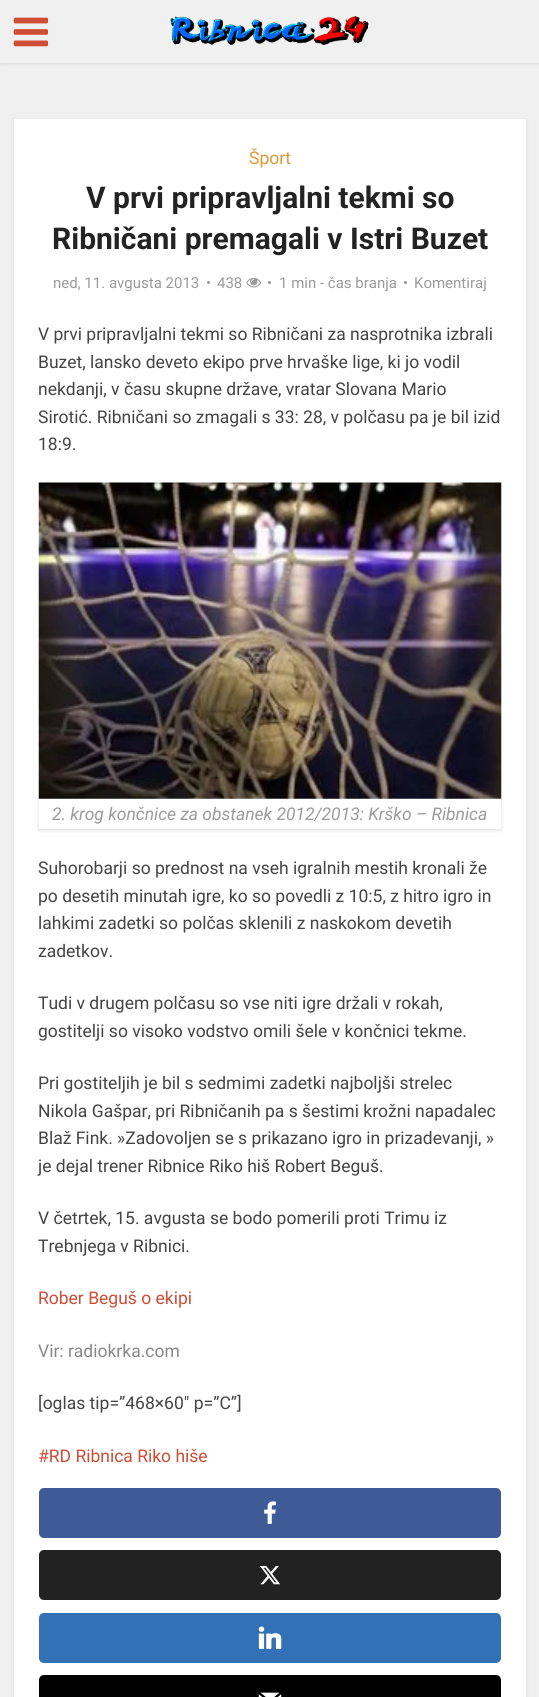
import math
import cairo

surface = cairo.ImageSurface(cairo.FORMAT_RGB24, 539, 1697)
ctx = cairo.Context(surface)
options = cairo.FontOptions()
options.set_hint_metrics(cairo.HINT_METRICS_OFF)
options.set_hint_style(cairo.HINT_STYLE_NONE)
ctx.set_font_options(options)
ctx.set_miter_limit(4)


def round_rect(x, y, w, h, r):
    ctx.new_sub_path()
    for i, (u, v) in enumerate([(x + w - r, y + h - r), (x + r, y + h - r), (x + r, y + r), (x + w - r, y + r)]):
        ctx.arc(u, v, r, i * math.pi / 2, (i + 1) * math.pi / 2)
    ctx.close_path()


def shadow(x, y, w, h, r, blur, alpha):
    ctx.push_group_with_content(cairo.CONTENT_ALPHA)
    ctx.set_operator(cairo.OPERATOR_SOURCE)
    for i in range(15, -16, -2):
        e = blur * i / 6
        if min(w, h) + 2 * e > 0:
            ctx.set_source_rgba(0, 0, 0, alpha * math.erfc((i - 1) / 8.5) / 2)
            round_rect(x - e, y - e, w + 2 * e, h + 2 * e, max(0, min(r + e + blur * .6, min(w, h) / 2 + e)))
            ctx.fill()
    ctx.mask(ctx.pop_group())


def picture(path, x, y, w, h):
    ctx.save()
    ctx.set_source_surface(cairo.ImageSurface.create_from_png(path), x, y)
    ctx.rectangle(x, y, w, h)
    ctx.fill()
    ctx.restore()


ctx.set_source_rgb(0.941, 0.941, 0.941)
ctx.paint()
ctx.save()
ctx.set_fill_rule(cairo.FILL_RULE_EVEN_ODD)
ctx.new_path()
ctx.move_to(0, 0)
ctx.line_to(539, 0)
ctx.line_to(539, 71)
ctx.line_to(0, 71)
ctx.close_path()
ctx.move_to(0, 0)
ctx.line_to(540, 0)
ctx.line_to(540, 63)
ctx.line_to(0, 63)
ctx.close_path()
ctx.clip()
ctx.set_source_rgb(0, 0, 0)
shadow(0, 1, 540, 63, 0, 2, 0.1)
ctx.restore()
picture("img1.png", 13, 17, 36, 30)
picture("img2.png", 170, 16, 199, 29)
ctx.set_source_rgb(0, 0, 0)
shadow(14, 120, 512, 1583, 0, 2, 0.1)
ctx.set_source_rgb(1, 1, 1)
ctx.rectangle(14, 119, 512, 1578)
ctx.fill()
ctx.select_font_face("Roboto")
ctx.set_font_size(17.5)
ctx.set_source_rgb(0.867, 0.6, 0.2)
ctx.move_to(249, 164)
ctx.show_text("Šport")
ctx.select_font_face("Roboto", cairo.FONT_SLANT_NORMAL, cairo.FONT_WEIGHT_BOLD)
ctx.set_font_size(30)
ctx.set_source_rgb(0.137, 0.137, 0.137)
ctx.move_to(86, 208)
ctx.show_text("V prvi pripravljalni tekmi so")
ctx.move_to(52, 249)
ctx.show_text("Ribničani premagali v Istri Buzet")
ctx.select_font_face("Roboto")
ctx.set_font_size(15)
ctx.set_source_rgb(0.608, 0.608, 0.608)
ctx.move_to(53, 288)
ctx.show_text("ned, 11. avgusta 2013")
ctx.move_to(206, 288)
ctx.show_text("•")
ctx.move_to(217, 288)
ctx.show_text("438")
picture("img3.png", 246, 277, 16, 11)
ctx.move_to(267, 288)
ctx.show_text("•")
ctx.move_to(279, 288)
ctx.show_text("1 min - čas branja")
ctx.move_to(403, 288)
ctx.show_text("•")
ctx.move_to(414, 288)
ctx.show_text("Komentiraj")
ctx.set_font_size(17.5)
ctx.set_source_rgb(0.267, 0.267, 0.267)
ctx.move_to(38, 340)
ctx.show_text("V prvi pripravljalni tekmi so Ribničani za nasprotnika izbrali")
ctx.move_to(38, 368)
ctx.show_text("Buzet, lansko deveto ekipo prve hrvaške lige, ki jo vodil")
ctx.move_to(38, 395)
ctx.show_text("nekdanji, v času skupne države, vratar Slovana Mario")
ctx.move_to(38, 423)
ctx.show_text("Sirotić. Ribničani so zmagali s 33: 28, v polčasu pa je bil izid")
ctx.move_to(38, 450)
ctx.show_text("18:9.")
ctx.save()
ctx.set_fill_rule(cairo.FILL_RULE_EVEN_ODD)
ctx.new_path()
ctx.move_to(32, 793)
ctx.line_to(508, 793)
ctx.line_to(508, 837)
ctx.line_to(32, 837)
ctx.close_path()
ctx.move_to(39, 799)
ctx.line_to(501, 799)
ctx.line_to(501, 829)
ctx.line_to(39, 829)
ctx.close_path()
ctx.clip()
ctx.set_source_rgb(0, 0, 0)
shadow(39, 800, 462, 30, 0, 2, 0.15)
ctx.restore()
picture("img4.png", 38, 482, 464, 317)
ctx.select_font_face("Roboto", cairo.FONT_SLANT_ITALIC)
ctx.set_source_rgb(0.608, 0.608, 0.608)
ctx.move_to(52, 820)
ctx.show_text("2. krog končnice za obstanek 2012/2013: Krško – Ribnica")
ctx.select_font_face("Roboto")
ctx.set_source_rgb(0.267, 0.267, 0.267)
ctx.move_to(38, 874)
ctx.show_text("Suhorobarji so prednost na vseh igralnih mestih kronali že")
ctx.move_to(38, 902)
ctx.show_text("po desetih minutah igre, ko so povedli z 10:5, z hitro igro in")
ctx.move_to(38, 929)
ctx.show_text("lahkimi zadetki so polčas sklenili z naskokom devetih")
ctx.move_to(38, 957)
ctx.show_text("zadetkov.")
ctx.move_to(38, 1009)
ctx.show_text("Tudi v drugem polčasu so vse niti igre držali v rokah,")
ctx.move_to(38, 1037)
ctx.show_text("gostitelji so visoko vodstvo omili šele v končnici tekme.")
ctx.move_to(38, 1089)
ctx.show_text("Pri gostiteljih je bil s sedmimi zadetki najboljši strelec")
ctx.move_to(38, 1117)
ctx.show_text("Nikola Gašpar, pri Ribničanih pa s šestimi krožni napadalec")
ctx.move_to(38, 1144)
ctx.show_text("Blaž Fink. »Zadovoljen se s prikazano igro in prizadevanji, »")
ctx.move_to(38, 1172)
ctx.show_text("je dejal trener Ribnice Riko hiš Robert Beguš.")
ctx.move_to(38, 1224)
ctx.show_text("V četrtek, 15. avgusta se bodo pomerili proti Trimu iz")
ctx.move_to(38, 1252)
ctx.show_text("Trebnjega v Ribnici.")
ctx.set_source_rgb(0.812, 0.302, 0.208)
ctx.move_to(38, 1304)
ctx.show_text("Rober Beguš o ekipi")
ctx.set_source_rgb(0.533, 0.533, 0.533)
ctx.move_to(38, 1357)
ctx.show_text("Vir: radiokrka.com")
ctx.set_source_rgb(0.267, 0.267, 0.267)
ctx.move_to(38, 1409)
ctx.show_text("[oglas tip=”468×60″ p=”C”]")
ctx.set_source_rgb(0.812, 0.302, 0.208)
ctx.move_to(38, 1462)
ctx.show_text("#RD Ribnica Riko hiše")
ctx.set_source_rgb(0.243, 0.357, 0.596)
round_rect(39, 1488, 462, 50, 5)
ctx.fill()
picture("img5.png", 264, 1501, 12, 23)
ctx.set_source_rgb(0.133, 0.133, 0.133)
round_rect(39, 1550, 462, 50, 5)
ctx.fill()
picture("img6.png", 260, 1566, 20, 19)
ctx.set_source_rgb(0.2, 0.443, 0.718)
round_rect(39, 1613, 462, 50, 5)
ctx.fill()
picture("img7.png", 258, 1626, 24, 23)
ctx.set_source_rgb(0, 0, 0)
round_rect(39, 1675, 462, 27, 5)
ctx.fill()
picture("img8.png", 258, 1692, 24, 5)
surface.write_to_png("page.png")
